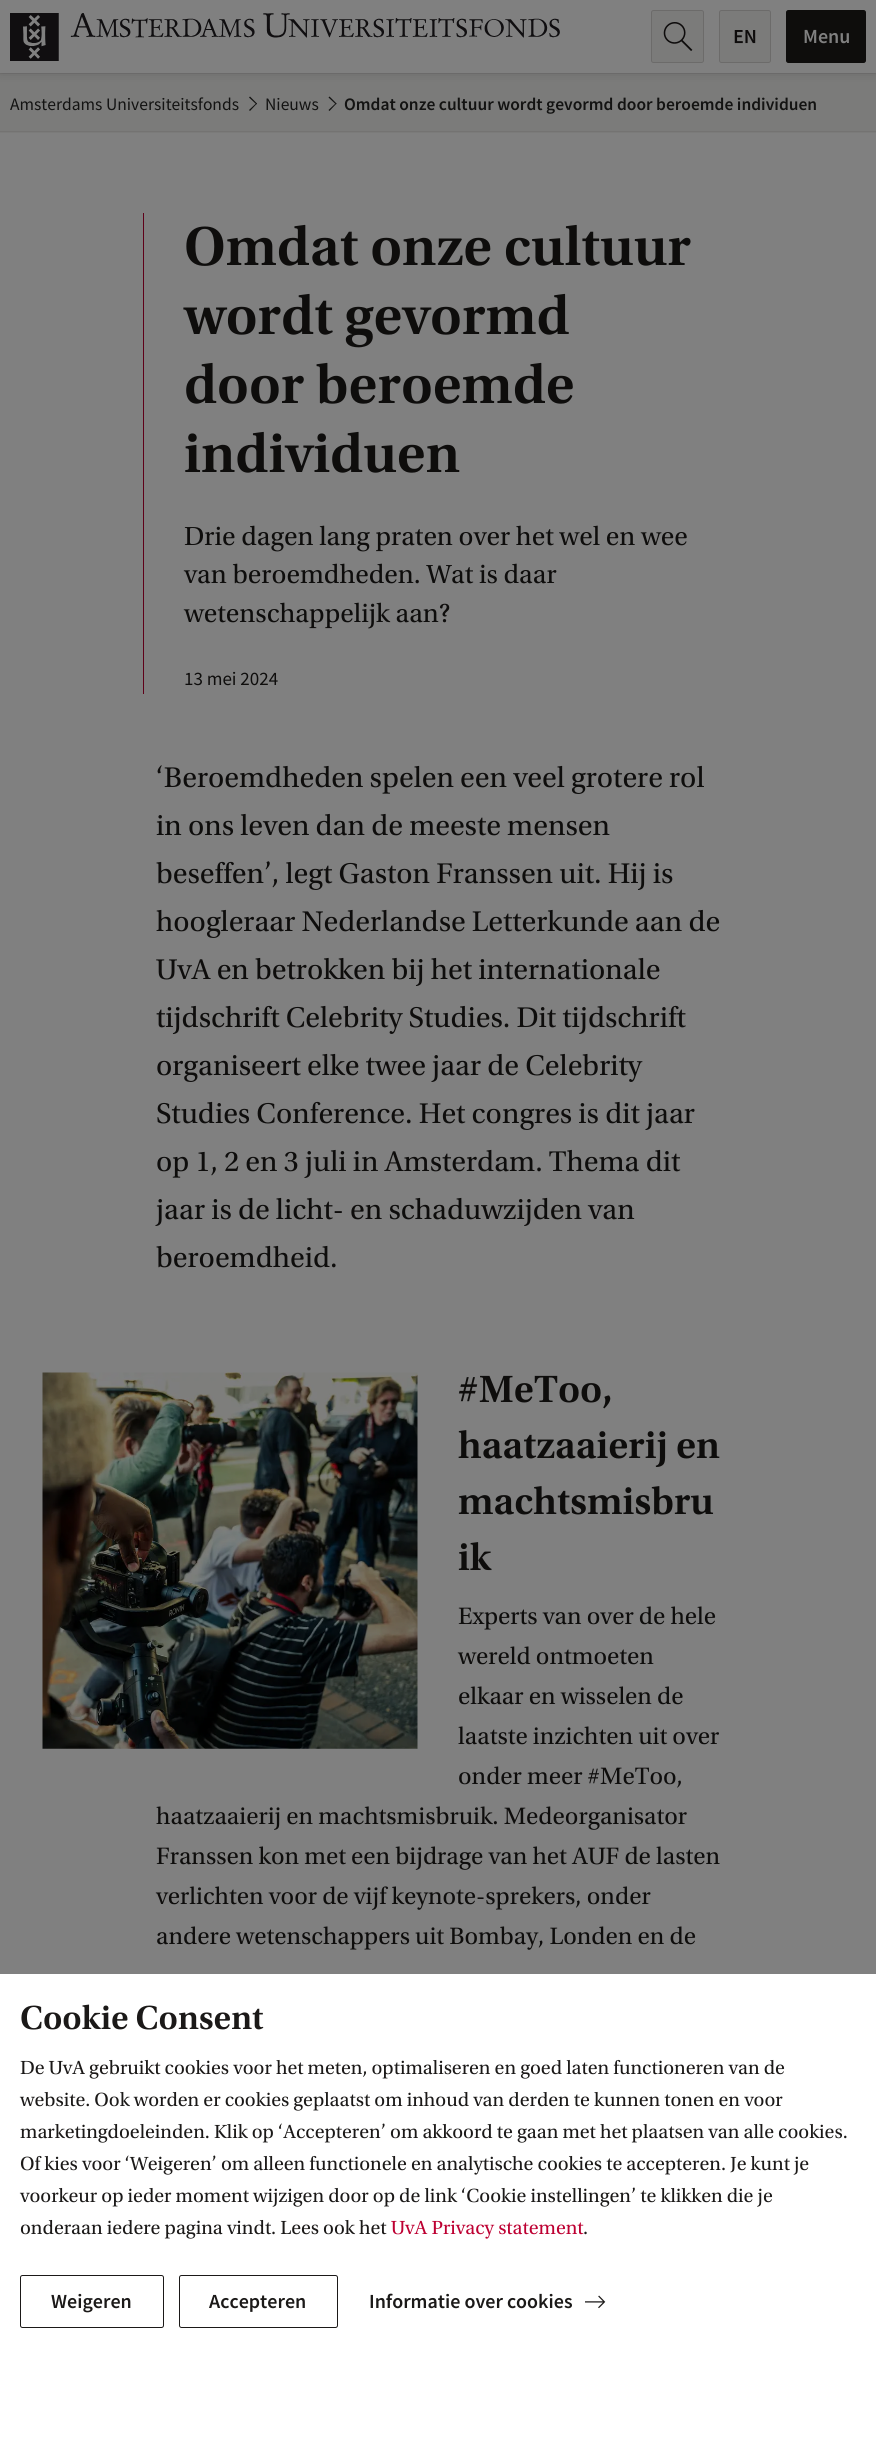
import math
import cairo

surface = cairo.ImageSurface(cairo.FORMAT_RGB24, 876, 2447)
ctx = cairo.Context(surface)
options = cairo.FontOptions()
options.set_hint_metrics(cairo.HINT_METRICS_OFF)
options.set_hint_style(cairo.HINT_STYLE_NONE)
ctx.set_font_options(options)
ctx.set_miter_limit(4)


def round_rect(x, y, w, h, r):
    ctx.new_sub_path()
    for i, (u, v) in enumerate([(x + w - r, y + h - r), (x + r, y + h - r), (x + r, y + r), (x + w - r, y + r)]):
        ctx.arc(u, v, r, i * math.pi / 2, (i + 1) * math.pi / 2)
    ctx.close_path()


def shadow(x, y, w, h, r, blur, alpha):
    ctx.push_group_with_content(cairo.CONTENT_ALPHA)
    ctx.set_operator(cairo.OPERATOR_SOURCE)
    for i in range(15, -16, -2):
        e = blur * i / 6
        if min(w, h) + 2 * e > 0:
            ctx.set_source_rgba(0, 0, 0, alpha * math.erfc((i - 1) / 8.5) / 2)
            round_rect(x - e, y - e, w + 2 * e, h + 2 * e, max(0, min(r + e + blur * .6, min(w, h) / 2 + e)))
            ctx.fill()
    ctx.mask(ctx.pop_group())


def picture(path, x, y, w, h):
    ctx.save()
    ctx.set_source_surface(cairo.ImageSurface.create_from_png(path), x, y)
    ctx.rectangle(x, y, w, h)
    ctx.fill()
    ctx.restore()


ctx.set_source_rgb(0.502, 0.502, 0.502)
ctx.paint()
ctx.set_source_rgb(0.482, 0.482, 0.478)
ctx.rectangle(0, 74, 876, 59)
ctx.fill()
ctx.set_source_rgb(0.455, 0.451, 0.447)
ctx.rectangle(0, 73, 876, 1)
ctx.fill()
ctx.set_source_rgb(0, 0, 0)
shadow(0, 0, 876, 73, 0, 6, 0.15)
ctx.set_source_rgb(0.502, 0.502, 0.502)
ctx.rectangle(0, 0, 876, 73)
ctx.fill()
picture("img1.png", 10, 13, 550, 48)
ctx.set_source_rgb(0.482, 0.482, 0.478)
round_rect(651.5, 10.5, 52, 52, 2)
ctx.fill_preserve()
ctx.set_source_rgb(0.424, 0.42, 0.416)
ctx.set_line_width(1)
ctx.stroke()
picture("img2.png", 663, 22, 30, 29)
ctx.set_source_rgb(0.482, 0.482, 0.478)
round_rect(719.5, 10.5, 51, 52, 2)
ctx.fill_preserve()
ctx.set_source_rgb(0.424, 0.42, 0.416)
ctx.stroke()
picture("img3.png", 734, 30, 22, 14)
ctx.set_source_rgb(0.055, 0.051, 0.047)
round_rect(786.5, 10.5, 79, 52, 2)
ctx.fill_preserve()
ctx.stroke()
ctx.select_font_face("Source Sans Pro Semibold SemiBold")
ctx.set_font_size(20)
ctx.set_source_rgb(0.502, 0.502, 0.502)
ctx.move_to(803, 43)
ctx.show_text("Menu")
ctx.set_source_rgb(0.455, 0.451, 0.447)
ctx.rectangle(0, 131, 876, 1)
ctx.fill()
ctx.select_font_face("Source Sans Pro")
ctx.set_font_size(17.5)
ctx.set_source_rgb(0.078, 0.075, 0.071)
ctx.move_to(10, 110)
ctx.show_text("Amsterdams Universiteitsfonds")
ctx.new_path()
ctx.move_to(249, 97.5)
ctx.line_to(250, 96.5)
ctx.line_to(257, 103.5)
ctx.line_to(256.5, 104.5)
ctx.close_path()
ctx.fill()
ctx.new_path()
ctx.move_to(249, 110)
ctx.line_to(256.5, 103)
ctx.line_to(257, 103.5)
ctx.line_to(250, 111)
ctx.close_path()
ctx.fill()
ctx.move_to(265, 110)
ctx.show_text("Nieuws")
ctx.new_path()
ctx.move_to(328.5, 97.5)
ctx.line_to(329.5, 96.5)
ctx.line_to(336.5, 103.5)
ctx.line_to(336, 104.5)
ctx.close_path()
ctx.fill()
ctx.new_path()
ctx.move_to(328.5, 110)
ctx.line_to(336, 103)
ctx.line_to(336.5, 103.5)
ctx.line_to(329.5, 111)
ctx.close_path()
ctx.fill()
ctx.select_font_face("Source Sans Pro Semibold SemiBold")
ctx.move_to(344, 110)
ctx.show_text("Omdat onze cultuur wordt gevormd door beroemde individuen")
ctx.set_source_rgb(0.373, 0, 0.098)
ctx.rectangle(143, 213, 1, 481)
ctx.fill()
ctx.select_font_face("Utopia SemiBold")
ctx.set_font_size(57.5)
ctx.set_source_rgb(0.055, 0.051, 0.047)
ctx.move_to(184, 265)
ctx.show_text("Omdat onze cultuur")
ctx.move_to(184, 334)
ctx.show_text("wordt gevormd")
ctx.move_to(184, 403)
ctx.show_text("door beroemde")
ctx.move_to(184, 472)
ctx.show_text("individuen")
ctx.select_font_face("Utopia")
ctx.set_font_size(27.5)
ctx.move_to(184, 545)
ctx.show_text("Drie dagen lang praten over het wel en wee")
ctx.move_to(184, 583)
ctx.show_text("van beroemdheden. Wat is daar")
ctx.move_to(184, 622)
ctx.show_text("wetenschappelijk aan?")
ctx.select_font_face("Source Sans Pro")
ctx.set_font_size(19)
ctx.move_to(184, 685)
ctx.show_text("13 mei 2024")
ctx.select_font_face("Utopia")
ctx.set_font_size(30)
ctx.move_to(156, 787)
ctx.show_text("‘Beroemdheden spelen een veel grotere rol")
ctx.move_to(156, 835)
ctx.show_text("in ons leven dan de meeste mensen")
ctx.move_to(156, 883)
ctx.show_text("beseffen’, legt Gaston Franssen uit. Hij is")
ctx.move_to(156, 931)
ctx.show_text("hoogleraar Nederlandse Letterkunde aan de")
ctx.move_to(156, 979)
ctx.show_text("UvA en betrokken bij het internationale")
ctx.move_to(156, 1027)
ctx.show_text("tijdschrift Celebrity Studies. Dit tijdschrift")
ctx.move_to(156, 1075)
ctx.show_text("organiseert elke twee jaar de Celebrity")
ctx.move_to(156, 1123)
ctx.show_text("Studies Conference. Het congres is dit jaar")
ctx.move_to(156, 1171)
ctx.show_text("op 1, 2 en 3 juli in Amsterdam. Thema dit")
ctx.move_to(156, 1219)
ctx.show_text("jaar is de licht- en schaduwzijden van")
ctx.move_to(156, 1267)
ctx.show_text("beroemdheid.")
picture("img4.png", 42, 1372, 376, 377)
ctx.select_font_face("Utopia SemiBold")
ctx.set_font_size(40)
ctx.move_to(458, 1402)
ctx.show_text("#MeToo,")
ctx.move_to(458, 1458)
ctx.show_text("haatzaaierij en")
ctx.move_to(458, 1514)
ctx.show_text("machtsmisbru")
ctx.move_to(458, 1570)
ctx.show_text("ik")
ctx.select_font_face("Utopia")
ctx.set_font_size(25)
ctx.move_to(458, 1624)
ctx.show_text("Experts van over de hele")
ctx.move_to(458, 1664)
ctx.show_text("wereld ontmoeten")
ctx.move_to(458, 1704)
ctx.show_text("elkaar en wisselen de")
ctx.move_to(458, 1744)
ctx.show_text("laatste inzichten uit over")
ctx.move_to(458, 1784)
ctx.show_text("onder meer #MeToo,")
ctx.move_to(156, 1824)
ctx.show_text("haatzaaierij en machtsmisbruik. Medeorganisator")
ctx.move_to(156, 1864)
ctx.show_text("Franssen kon met een bijdrage van het AUF de lasten")
ctx.move_to(156, 1904)
ctx.show_text("verlichten voor de vijf keynote-sprekers, onder")
ctx.move_to(156, 1944)
ctx.show_text("andere wetenschappers uit Bombay, Londen en de")
ctx.set_source_rgb(1, 1, 1)
ctx.rectangle(0, 1974, 876, 473)
ctx.fill()
ctx.select_font_face("Utopia SemiBold")
ctx.set_font_size(35)
ctx.set_source_rgb(0.106, 0.098, 0.094)
ctx.move_to(20, 2029)
ctx.show_text("Cookie Consent")
ctx.select_font_face("Utopia")
ctx.set_font_size(20)
ctx.move_to(20, 2074)
ctx.show_text("De UvA gebruikt cookies voor het meten, optimaliseren en goed laten functioneren van de")
ctx.move_to(20, 2106)
ctx.show_text("website. Ook worden er cookies geplaatst om inhoud van derden te kunnen tonen en voor")
ctx.move_to(20, 2138)
ctx.show_text("marketingdoeleinden. Klik op ‘Accepteren’ om akkoord te gaan met het plaatsen van alle cookies.")
ctx.move_to(20, 2170)
ctx.show_text("Of kies voor ‘Weigeren’ om alleen functionele en analytische cookies te accepteren. Je kunt je")
ctx.move_to(20, 2202)
ctx.show_text("voorkeur op ieder moment wijzigen door op de link ‘Cookie instellingen’ te klikken die je")
ctx.move_to(20, 2234)
ctx.show_text("onderaan iedere pagina vindt. Lees ook het")
ctx.set_source_rgb(0.741, 0, 0.196)
ctx.move_to(391, 2234)
ctx.show_text("UvA Privacy statement")
ctx.set_source_rgb(0.106, 0.098, 0.094)
ctx.move_to(583, 2234)
ctx.show_text(".")
round_rect(20.5, 2275.5, 143, 52, 2)
ctx.stroke()
ctx.select_font_face("Source Sans Pro Semibold SemiBold")
ctx.move_to(51, 2308)
ctx.show_text("Weigeren")
round_rect(179.5, 2275.5, 158, 52, 2)
ctx.stroke()
ctx.move_to(209, 2308)
ctx.show_text("Accepteren")
ctx.move_to(369, 2308)
ctx.show_text("Informatie over cookies")
picture("img5.png", 585, 2295, 21, 14)
surface.write_to_png("page.png")
